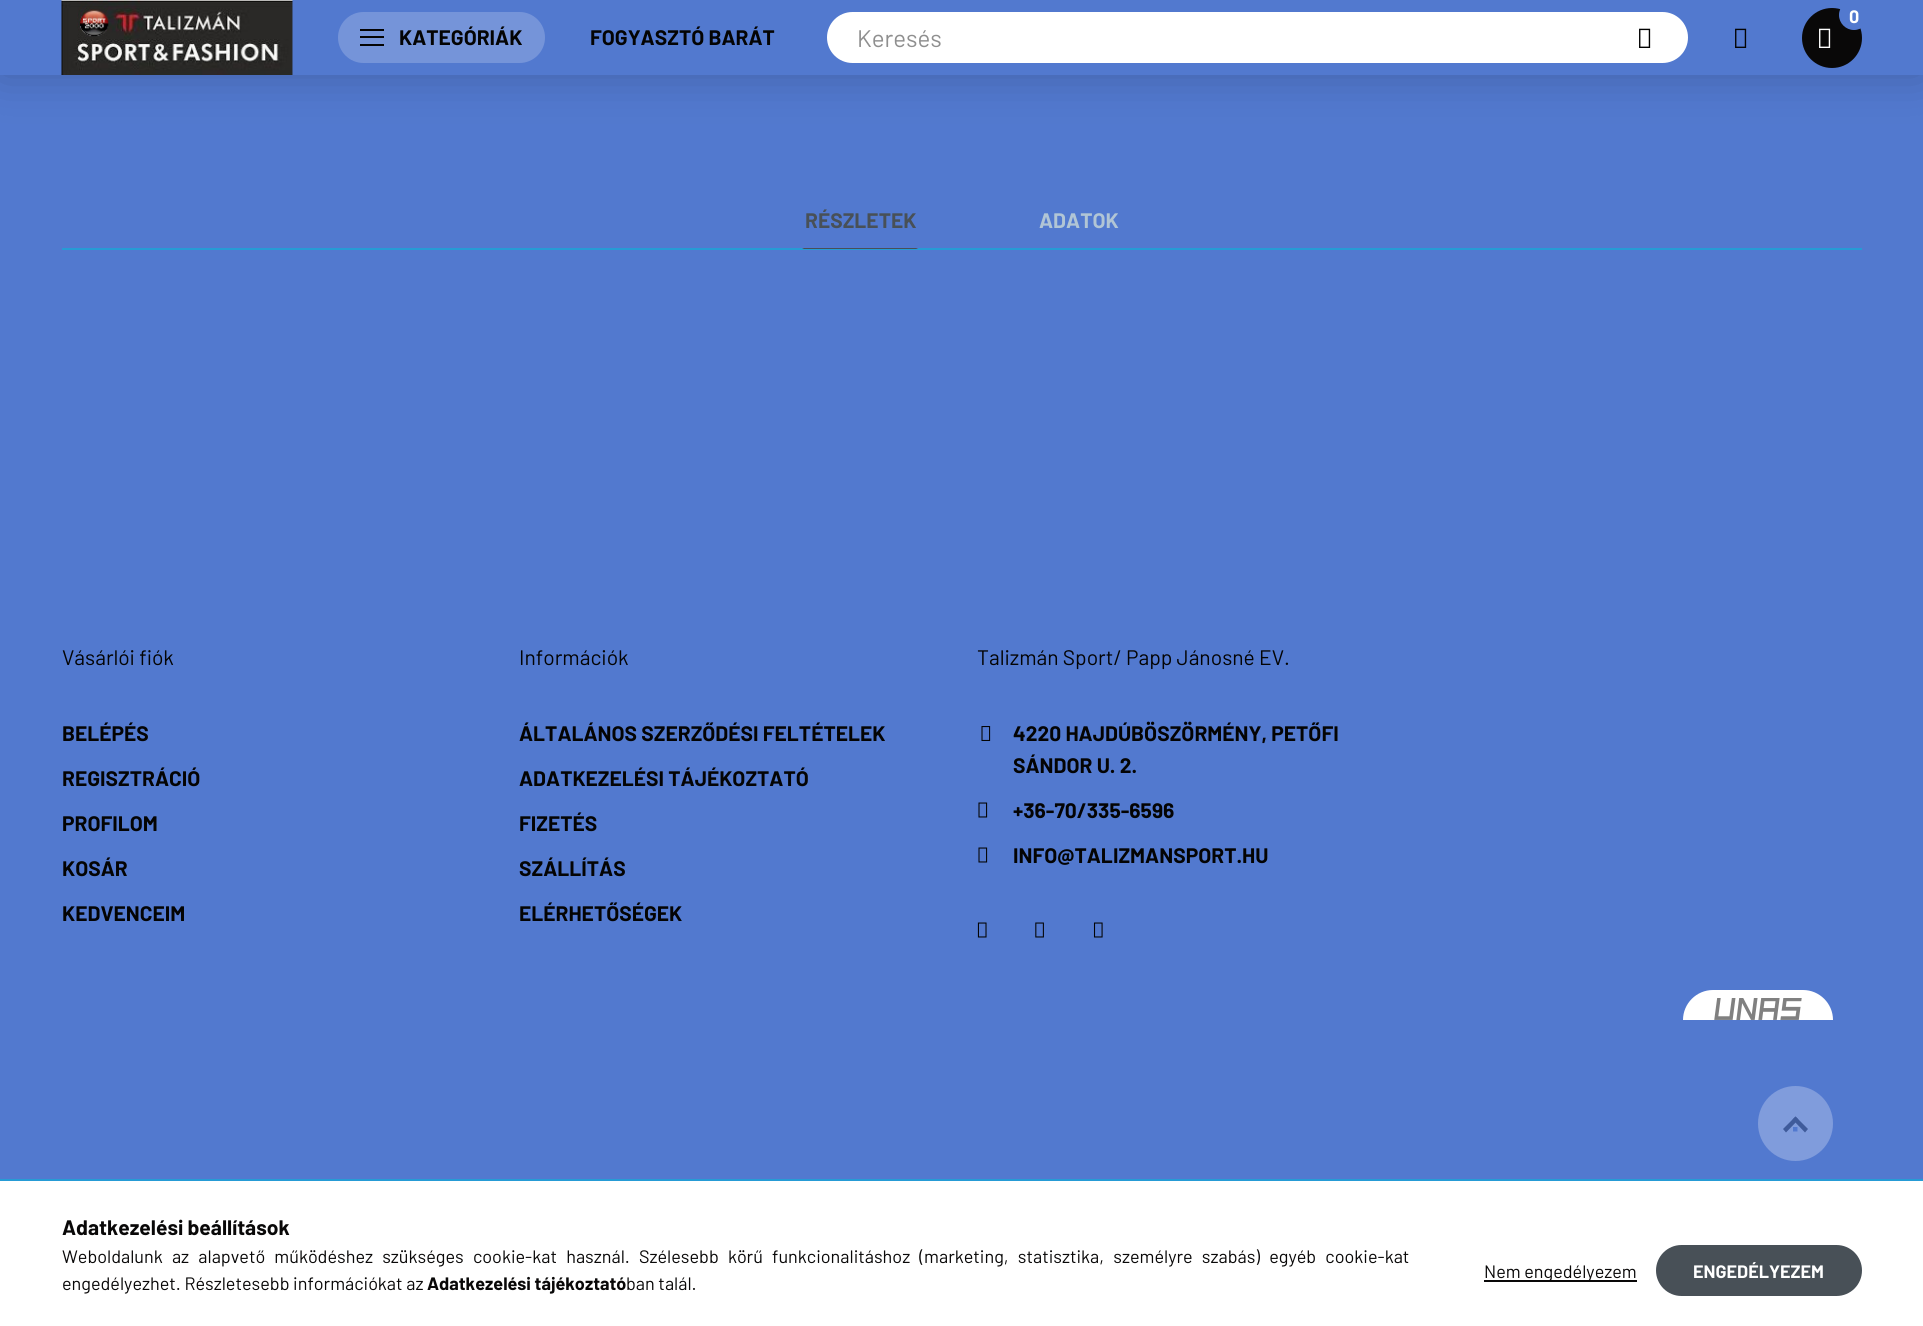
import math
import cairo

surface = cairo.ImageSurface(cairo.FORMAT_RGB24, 1923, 1326)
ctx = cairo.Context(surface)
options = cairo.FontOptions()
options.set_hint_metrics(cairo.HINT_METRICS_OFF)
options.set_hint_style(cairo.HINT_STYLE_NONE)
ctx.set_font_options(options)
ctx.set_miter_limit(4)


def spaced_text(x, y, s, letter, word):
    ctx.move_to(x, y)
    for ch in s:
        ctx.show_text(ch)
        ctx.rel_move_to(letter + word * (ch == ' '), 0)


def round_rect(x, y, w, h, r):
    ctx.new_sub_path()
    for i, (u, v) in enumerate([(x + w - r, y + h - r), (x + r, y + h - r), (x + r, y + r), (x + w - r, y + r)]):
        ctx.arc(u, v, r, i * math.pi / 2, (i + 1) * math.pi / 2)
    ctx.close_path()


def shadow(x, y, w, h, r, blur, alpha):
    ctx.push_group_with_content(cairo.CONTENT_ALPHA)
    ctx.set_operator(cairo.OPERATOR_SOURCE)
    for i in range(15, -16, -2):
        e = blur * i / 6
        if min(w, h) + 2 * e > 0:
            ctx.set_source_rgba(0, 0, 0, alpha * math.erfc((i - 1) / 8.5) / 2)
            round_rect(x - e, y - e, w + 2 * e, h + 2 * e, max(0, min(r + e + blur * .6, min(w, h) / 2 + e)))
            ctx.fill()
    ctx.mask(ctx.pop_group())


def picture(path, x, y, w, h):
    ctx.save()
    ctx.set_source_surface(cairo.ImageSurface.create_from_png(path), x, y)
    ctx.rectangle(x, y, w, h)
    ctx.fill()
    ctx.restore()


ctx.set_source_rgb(0.322, 0.475, 0.812)
ctx.paint()
ctx.set_source_rgb(0, 0, 0)
shadow(0, 0, 1923, 75, 0, 22.5, 0.2)
ctx.set_source_rgb(0.322, 0.475, 0.812)
ctx.rectangle(0, 0, 1923, 75)
ctx.fill()
picture("img1.png", 61, 0, 232, 75)
ctx.set_source_rgb(0.459, 0.58, 0.851)
round_rect(338, 12, 207, 51, 25.5)
ctx.fill()
ctx.set_source_rgb(0.016, 0.016, 0.016)
ctx.rectangle(360, 29, 24, 2)
ctx.fill()
ctx.rectangle(360, 36, 24, 2)
ctx.fill()
ctx.rectangle(360, 44, 24, 2)
ctx.fill()
ctx.select_font_face("Barlow", cairo.FONT_SLANT_NORMAL, cairo.FONT_WEIGHT_BOLD)
ctx.set_font_size(21)
ctx.move_to(399, 45)
ctx.show_text("KATEGÓRIÁK")
ctx.move_to(590, 45)
ctx.show_text("FOGYASZTÓ BARÁT")
ctx.set_source_rgb(0.039, 0.035, 0.035)
ctx.new_path()
ctx.arc(1832, 38, 30, 0, 2 * math.pi)
ctx.fill()
ctx.set_source_rgb(0.322, 0.475, 0.812)
ctx.arc(1854, 15, 15, 0, 2 * math.pi)
ctx.fill()
ctx.set_font_size(18)
ctx.set_source_rgb(1, 1, 1)
ctx.move_to(1849, 23)
ctx.show_text("0")
picture("img2.png", 1819, 28, 12, 20)
round_rect(827, 12, 861, 51, 25.5)
ctx.fill()
ctx.select_font_face("Barlow")
ctx.set_font_size(24)
ctx.set_source_rgb(0.561, 0.561, 0.561)
ctx.move_to(857, 47)
ctx.show_text("Keresés")
picture("img3.png", 1639, 28, 12, 20)
picture("img4.png", 1735, 28, 12, 20)
ctx.set_source_rgb(0.149, 0.608, 0.835)
ctx.rectangle(62, 248, 1800, 2)
ctx.fill()
ctx.set_source_rgb(0.322, 0.475, 0.812)
ctx.rectangle(803, 248, 115, 1)
ctx.fill()
ctx.set_source_rgb(0.282, 0.314, 0.341)
ctx.new_path()
ctx.move_to(918, 249)
ctx.line_to(802, 249)
ctx.line_to(804, 248)
ctx.line_to(916, 248)
ctx.close_path()
ctx.fill()
ctx.select_font_face("Barlow", cairo.FONT_SLANT_NORMAL, cairo.FONT_WEIGHT_BOLD)
ctx.set_font_size(21)
ctx.move_to(805, 228)
ctx.show_text("RÉSZLETEK")
ctx.set_source_rgb(0.694, 0.773, 0.835)
ctx.move_to(1039, 228)
ctx.show_text("ADATOK")
ctx.select_font_face("Barlow")
ctx.set_source_rgb(0.016, 0.016, 0.016)
ctx.move_to(62, 665)
ctx.show_text("Vásárlói fiók")
ctx.select_font_face("Barlow", cairo.FONT_SLANT_NORMAL, cairo.FONT_WEIGHT_BOLD)
ctx.move_to(62, 741)
ctx.show_text("BELÉPÉS")
ctx.move_to(62, 786)
ctx.show_text("REGISZTRÁCIÓ")
ctx.move_to(62, 831)
ctx.show_text("PROFILOM")
ctx.move_to(62, 876)
ctx.show_text("KOSÁR")
ctx.move_to(62, 921)
ctx.show_text("KEDVENCEIM")
ctx.select_font_face("Barlow")
ctx.move_to(519, 665)
ctx.show_text("Információk")
ctx.select_font_face("Barlow", cairo.FONT_SLANT_NORMAL, cairo.FONT_WEIGHT_BOLD)
ctx.move_to(519, 741)
ctx.show_text("ÁLTALÁNOS SZERZŐDÉSI FELTÉTELEK")
ctx.move_to(519, 786)
ctx.show_text("ADATKEZELÉSI TÁJÉKOZTATÓ")
ctx.move_to(519, 831)
ctx.show_text("FIZETÉS")
ctx.move_to(519, 876)
ctx.show_text("SZÁLLÍTÁS")
ctx.move_to(519, 921)
ctx.show_text("ELÉRHETŐSÉGEK")
ctx.select_font_face("Barlow")
ctx.move_to(977, 665)
ctx.show_text("Talizmán Sport/ Papp Jánosné EV.")
picture("img5.png", 981, 726, 10, 15)
ctx.select_font_face("Barlow", cairo.FONT_SLANT_NORMAL, cairo.FONT_WEIGHT_BOLD)
ctx.move_to(1013, 741)
ctx.show_text("4220 HAJDÚBÖSZÖRMÉNY, PETŐFI")
ctx.move_to(1013, 773)
ctx.show_text("SÁNDOR U. 2.")
picture("img6.png", 978, 802, 10, 16)
ctx.move_to(1013, 818)
ctx.show_text("+36-70/335-6596")
picture("img6.png", 978, 847, 10, 16)
ctx.move_to(1013, 863)
ctx.show_text("INFO@TALIZMANSPORT.HU")
picture("img7.png", 977, 922, 10, 16)
picture("img8.png", 1035, 922, 9, 16)
picture("img9.png", 1093, 922, 10, 16)
ctx.set_source_rgb(1, 1, 1)
ctx.new_path()
ctx.move_to(1713, 990)
ctx.line_to(1803, 990)
ctx.curve_to(1819.5, 990, 1833, 1003.5, 1833, 1020)
ctx.line_to(1683, 1020)
ctx.curve_to(1683, 1003.5, 1696.5, 990, 1713, 990)
ctx.close_path()
ctx.fill()
picture("img10.png", 1714, 998, 88, 22)
ctx.set_source_rgb(0.502, 0.612, 0.863)
ctx.arc(1795.5, 1123.5, 37.5, 0, 2 * math.pi)
ctx.fill()
ctx.set_source_rgb(0.247, 0.357, 0.608)
ctx.new_path()
ctx.move_to(1805, 1132.5)
ctx.line_to(1792.5, 1119.5)
ctx.line_to(1795.5, 1116.5)
ctx.line_to(1808, 1129)
ctx.close_path()
ctx.fill()
ctx.set_source_rgb(0.322, 0.475, 0.812)
ctx.new_path()
ctx.move_to(1793, 1131.5)
ctx.line_to(1793, 1127)
ctx.line_to(1797.5, 1127)
ctx.line_to(1797.5, 1131.5)
ctx.close_path()
ctx.fill()
ctx.set_source_rgb(0.247, 0.357, 0.608)
ctx.new_path()
ctx.move_to(1783, 1129)
ctx.line_to(1795.5, 1116.5)
ctx.line_to(1798.5, 1119.5)
ctx.line_to(1786, 1132.5)
ctx.close_path()
ctx.fill()
ctx.set_source_rgb(1, 1, 1)
ctx.rectangle(0, 1181, 1923, 145)
ctx.fill()
ctx.set_source_rgb(0.149, 0.608, 0.835)
ctx.rectangle(0, 1179, 1923, 2)
ctx.fill()
ctx.set_source_rgb(0.039, 0.035, 0.035)
ctx.move_to(62, 1235)
ctx.show_text("Adatkezelési beállítások")
ctx.select_font_face("Barlow")
ctx.set_font_size(18)
spaced_text(62, 1263, "Weboldalunk az alapvető működéshez szükséges cookie-kat használ. Szélesebb körű funkcionalitáshoz (marketing, statisztika, személyre szabás) egyéb cookie-kat", 0, 5.6)
ctx.move_to(62, 1290)
ctx.show_text("engedélyezhet. Részletesebb információkat az")
ctx.select_font_face("Barlow", cairo.FONT_SLANT_NORMAL, cairo.FONT_WEIGHT_BOLD)
ctx.move_to(427, 1290)
ctx.show_text("Adatkezelési tájékoztató")
ctx.select_font_face("Barlow")
ctx.move_to(626, 1290)
ctx.show_text("ban talál.")
ctx.rectangle(1484, 1280, 153, 2)
ctx.fill()
ctx.move_to(1484, 1278)
ctx.show_text("Nem engedélyezem")
gradient = cairo.LinearGradient(1656, 1271, 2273, 1271)
gradient.add_color_stop_rgba(0.33, 0.282, 0.314, 0.341, 1)
gradient.add_color_stop_rgba(0.67, 0.114, 0.502, 0.812, 1)
ctx.set_source(gradient)
round_rect(1656, 1245, 206, 51, 25.5)
ctx.fill()
ctx.select_font_face("Barlow", cairo.FONT_SLANT_NORMAL, cairo.FONT_WEIGHT_BOLD)
ctx.set_source_rgb(1, 1, 1)
ctx.move_to(1693, 1278)
ctx.show_text("ENGEDÉLYEZEM")
surface.write_to_png("page.png")
